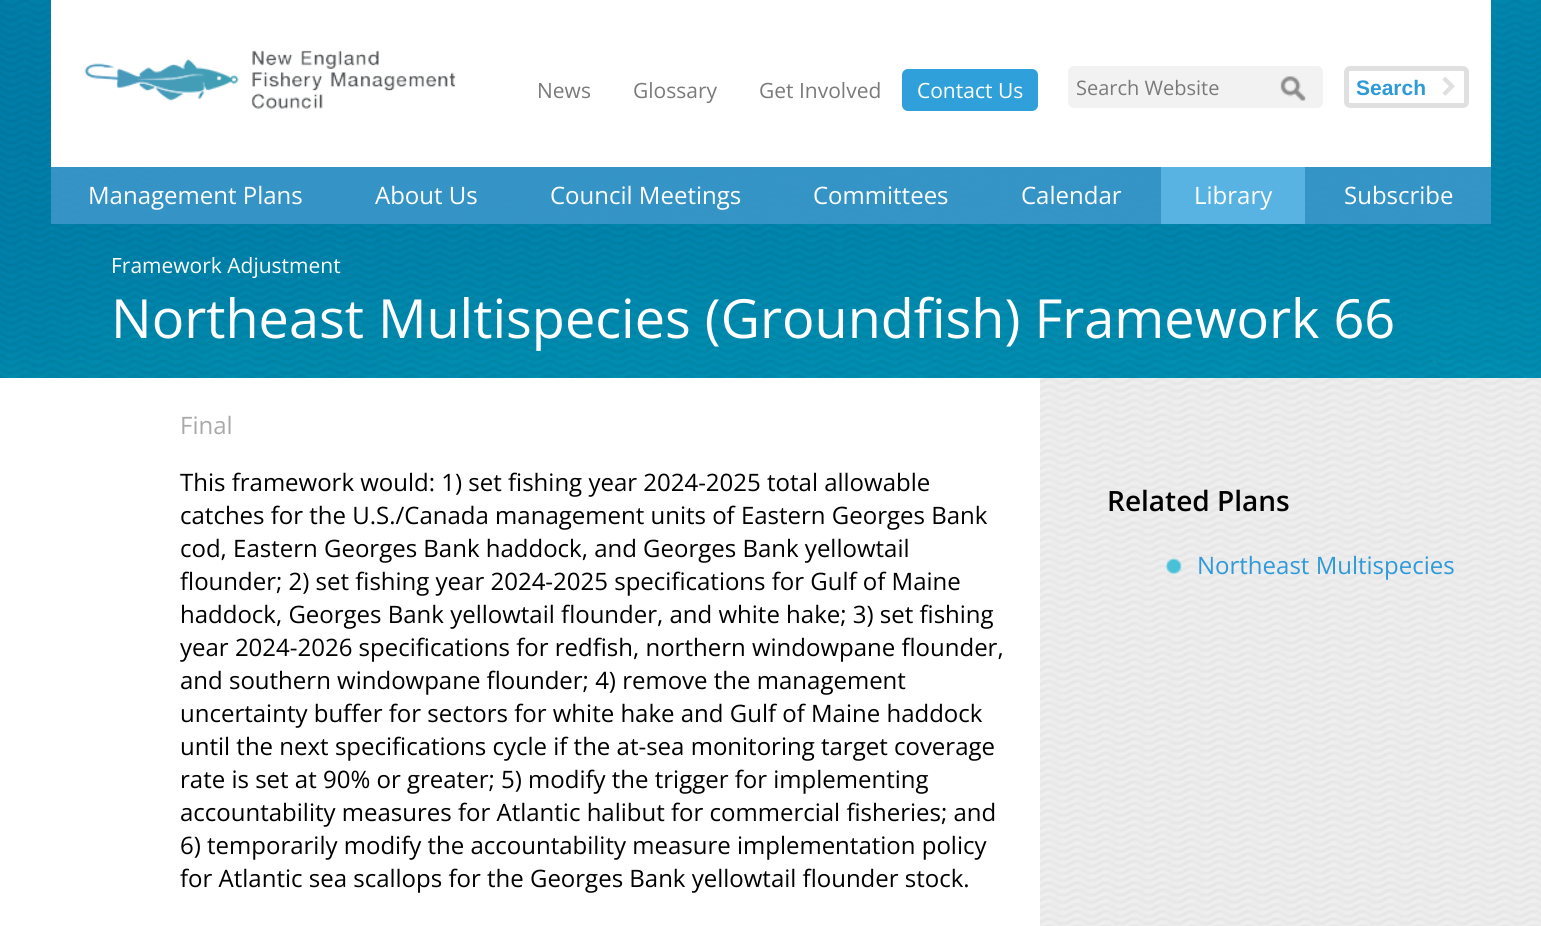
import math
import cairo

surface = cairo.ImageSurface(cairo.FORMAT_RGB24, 1541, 926)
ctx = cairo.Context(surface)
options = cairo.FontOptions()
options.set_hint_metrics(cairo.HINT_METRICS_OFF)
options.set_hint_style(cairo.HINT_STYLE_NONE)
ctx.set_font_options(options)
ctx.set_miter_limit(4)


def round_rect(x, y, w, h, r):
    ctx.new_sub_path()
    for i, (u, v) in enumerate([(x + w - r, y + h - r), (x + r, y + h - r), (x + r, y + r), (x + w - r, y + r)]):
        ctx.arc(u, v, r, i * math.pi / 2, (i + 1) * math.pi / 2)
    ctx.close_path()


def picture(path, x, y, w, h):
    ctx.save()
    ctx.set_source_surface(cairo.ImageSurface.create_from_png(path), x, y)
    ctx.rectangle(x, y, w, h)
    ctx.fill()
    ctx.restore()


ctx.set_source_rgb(1, 1, 1)
ctx.paint()
picture("img1.png", 0, 0, 1541, 378)
ctx.set_source_rgb(1, 1, 1)
ctx.rectangle(51, 0, 1440, 167)
ctx.fill()
picture("img2.png", 84, 50, 372, 59)
ctx.select_font_face("Open Sans")
ctx.set_font_size(21)
ctx.set_source_rgb(0.478, 0.478, 0.478)
ctx.move_to(537, 98)
ctx.show_text("News")
ctx.move_to(633, 98)
ctx.show_text("Glossary")
ctx.move_to(759, 98)
ctx.show_text("Get Involved")
ctx.set_source_rgb(0.184, 0.627, 0.851)
round_rect(902, 69, 136, 42, 6)
ctx.fill()
ctx.set_source_rgb(1, 1, 1)
ctx.move_to(917, 98)
ctx.show_text("Contact Us")
ctx.set_source_rgb(0.949, 0.949, 0.949)
round_rect(1068, 66, 255, 42, 6)
ctx.fill()
picture("img3.png", 1280, 76, 26, 25)
ctx.set_font_size(20)
ctx.set_source_rgb(0.478, 0.478, 0.478)
ctx.move_to(1076, 95)
ctx.show_text("Search Website")
round_rect(1346.5, 68.5, 120, 37, 3.5)
ctx.set_source_rgb(0.878, 0.878, 0.878)
ctx.set_line_width(5)
ctx.stroke()
ctx.select_font_face("Liberation Sans", cairo.FONT_SLANT_NORMAL, cairo.FONT_WEIGHT_BOLD)
ctx.set_font_size(21)
ctx.set_source_rgb(0.18, 0.604, 0.851)
ctx.move_to(1356, 95)
ctx.show_text("Search")
picture("img4.png", 1442, 77, 13, 19)
ctx.set_source_rgba(0.259, 0.596, 0.804, 0.8)
ctx.rectangle(51, 167, 1440, 57)
ctx.fill()
ctx.select_font_face("Open Sans")
ctx.set_font_size(24)
ctx.set_source_rgb(1, 1, 1)
ctx.move_to(88, 204)
ctx.show_text("Management Plans")
ctx.move_to(375, 204)
ctx.show_text("About Us")
ctx.move_to(550, 204)
ctx.show_text("Council Meetings")
ctx.move_to(813, 204)
ctx.show_text("Committees")
ctx.move_to(1021, 204)
ctx.show_text("Calendar")
ctx.set_source_rgb(0.345, 0.702, 0.886)
ctx.rectangle(1161, 167, 144, 57)
ctx.fill()
ctx.set_source_rgb(1, 1, 1)
ctx.move_to(1194, 204)
ctx.show_text("Library")
ctx.move_to(1344, 204)
ctx.show_text("Subscribe")
ctx.set_font_size(21)
ctx.move_to(111, 273)
ctx.show_text("Framework Adjustment")
ctx.set_font_size(54)
ctx.move_to(111, 338)
ctx.show_text("Northeast Multispecies (Groundfish) Framework 66")
ctx.set_font_size(24)
ctx.set_source_rgb(0.663, 0.663, 0.663)
ctx.move_to(180, 434)
ctx.show_text("Final")
ctx.set_source_rgb(0, 0, 0)
ctx.move_to(180, 491)
ctx.show_text("This framework would: 1) set fishing year 2024-2025 total allowable")
ctx.move_to(180, 524)
ctx.show_text("catches for the U.S./Canada management units of Eastern Georges Bank")
ctx.move_to(180, 557)
ctx.show_text("cod, Eastern Georges Bank haddock, and Georges Bank yellowtail")
ctx.move_to(180, 590)
ctx.show_text("flounder; 2) set fishing year 2024-2025 specifications for Gulf of Maine")
ctx.move_to(180, 623)
ctx.show_text("haddock, Georges Bank yellowtail flounder, and white hake; 3) set fishing")
ctx.move_to(180, 656)
ctx.show_text("year 2024-2026 specifications for redfish, northern windowpane flounder,")
ctx.move_to(180, 689)
ctx.show_text("and southern windowpane flounder; 4) remove the management")
ctx.move_to(180, 722)
ctx.show_text("uncertainty buffer for sectors for white hake and Gulf of Maine haddock")
ctx.move_to(180, 755)
ctx.show_text("until the next specifications cycle if the at-sea monitoring target coverage")
ctx.move_to(180, 788)
ctx.show_text("rate is set at 90% or greater; 5) modify the trigger for implementing")
ctx.move_to(180, 821)
ctx.show_text("accountability measures for Atlantic halibut for commercial fisheries; and")
ctx.move_to(180, 854)
ctx.show_text("6) temporarily modify the accountability measure implementation policy")
ctx.move_to(180, 887)
ctx.show_text("for Atlantic sea scallops for the Georges Bank yellowtail flounder stock.")
picture("img5.png", 1040, 378, 501, 548)
ctx.select_font_face("Open Sans SemiBold")
ctx.set_font_size(28)
ctx.move_to(1107, 511)
ctx.show_text("Related Plans")
picture("img6.png", 1165, 558, 18, 17)
ctx.select_font_face("Open Sans")
ctx.set_font_size(24)
ctx.set_source_rgb(0.18, 0.604, 0.851)
ctx.move_to(1197, 574)
ctx.show_text("Northeast Multispecies")
surface.write_to_png("page.png")
